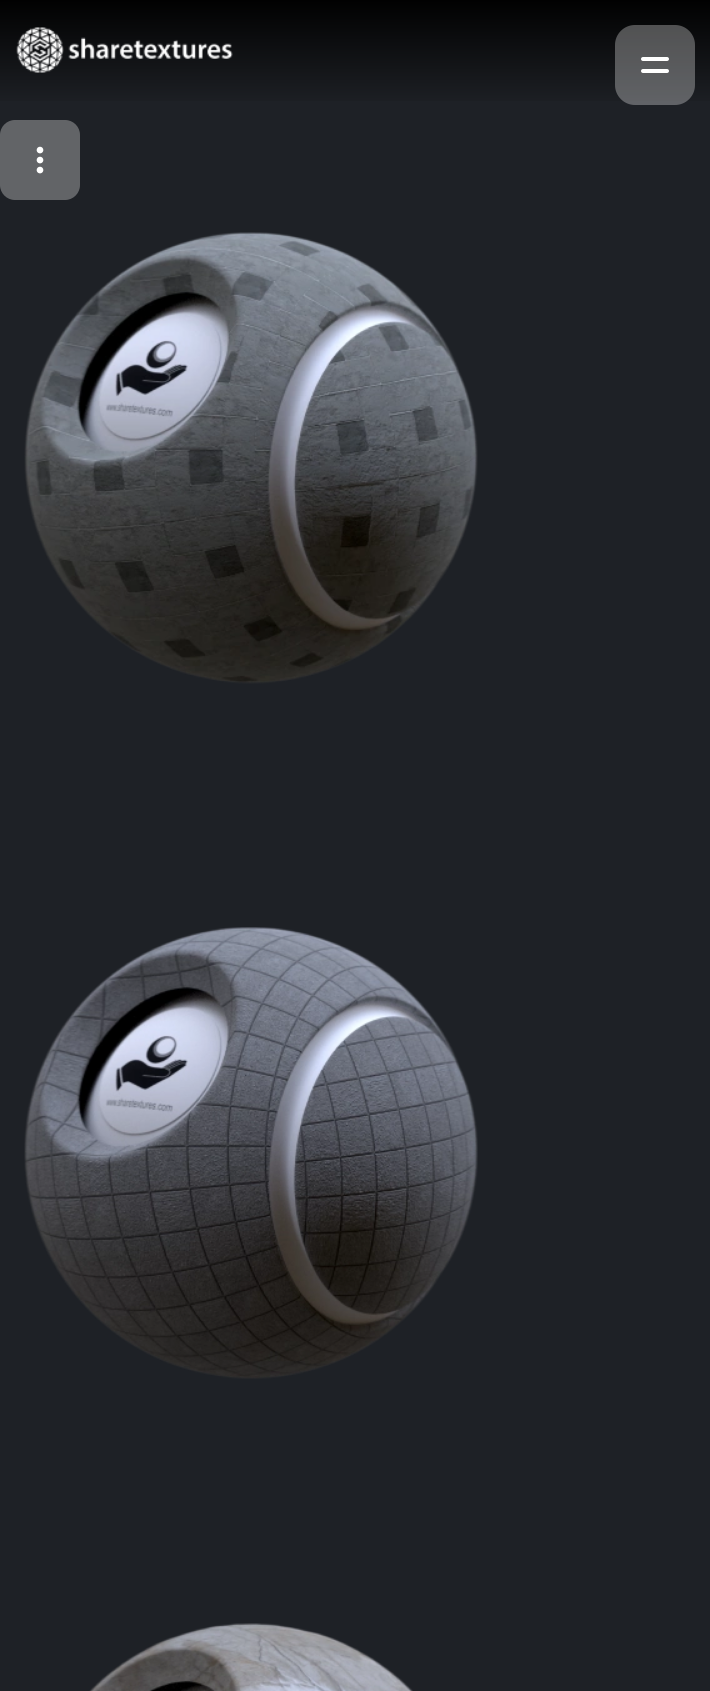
import math
import cairo

surface = cairo.ImageSurface(cairo.FORMAT_RGB24, 710, 1691)
ctx = cairo.Context(surface)
options = cairo.FontOptions()
options.set_hint_metrics(cairo.HINT_METRICS_OFF)
options.set_hint_style(cairo.HINT_STYLE_NONE)
ctx.set_font_options(options)
ctx.set_miter_limit(4)


def round_rect(x, y, w, h, r):
    ctx.new_sub_path()
    for i, (u, v) in enumerate([(x + w - r, y + h - r), (x + r, y + h - r), (x + r, y + r), (x + w - r, y + r)]):
        ctx.arc(u, v, r, i * math.pi / 2, (i + 1) * math.pi / 2)
    ctx.close_path()


def picture(path, x, y, w, h):
    ctx.save()
    ctx.set_source_surface(cairo.ImageSurface.create_from_png(path), x, y)
    ctx.rectangle(x, y, w, h)
    ctx.fill()
    ctx.restore()


ctx.set_source_rgb(0.118, 0.129, 0.149)
ctx.paint()
gradient = cairo.LinearGradient(355, 0, 355, 108)
gradient.add_color_stop_rgba(0, 0.004, 0.004, 0.004, 1)
gradient.add_color_stop_rgba(1, 0.118, 0.129, 0.149, 1)
ctx.set_source(gradient)
ctx.rectangle(0, 0, 710, 101)
ctx.fill()
picture("img1.png", 16, 27, 217, 46)
ctx.set_source_rgba(1, 1, 1, 0.3)
round_rect(615, 25, 80, 80, 20)
ctx.fill()
picture("img2.png", 641, 57, 28, 16)
ctx.set_source_rgb(0.384, 0.392, 0.404)
round_rect(0, 120, 80, 80, 15)
ctx.fill()
picture("img3.png", 36, 146, 8, 28)
picture("img4.png", 24, 232, 454, 452)
picture("img5.png", 24, 927, 454, 452)
picture("img6.png", 89, 1623, 324, 68)
surface.write_to_png("page.png")
